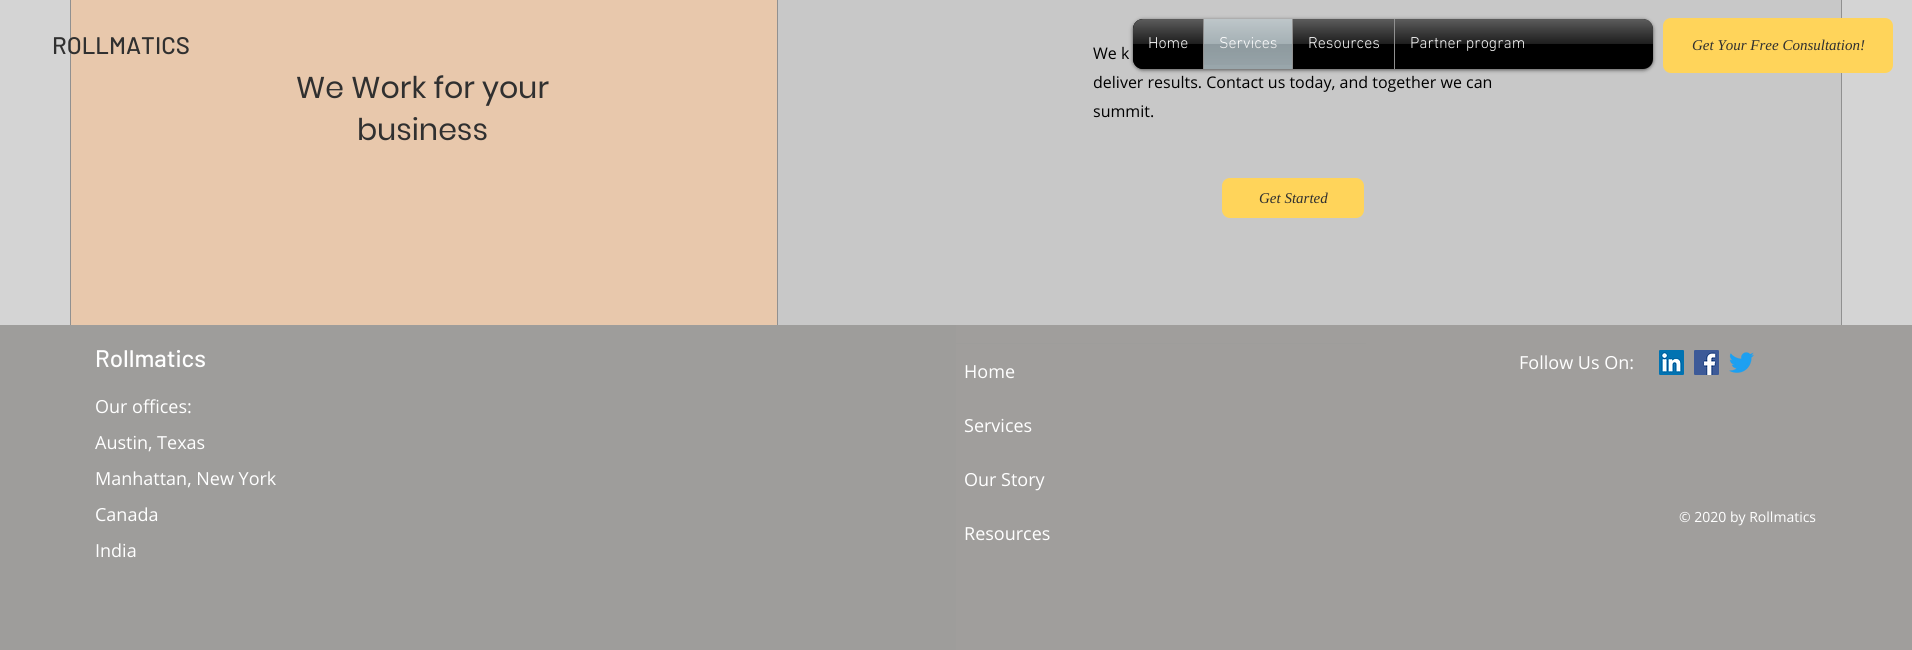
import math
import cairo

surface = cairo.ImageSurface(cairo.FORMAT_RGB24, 1912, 650)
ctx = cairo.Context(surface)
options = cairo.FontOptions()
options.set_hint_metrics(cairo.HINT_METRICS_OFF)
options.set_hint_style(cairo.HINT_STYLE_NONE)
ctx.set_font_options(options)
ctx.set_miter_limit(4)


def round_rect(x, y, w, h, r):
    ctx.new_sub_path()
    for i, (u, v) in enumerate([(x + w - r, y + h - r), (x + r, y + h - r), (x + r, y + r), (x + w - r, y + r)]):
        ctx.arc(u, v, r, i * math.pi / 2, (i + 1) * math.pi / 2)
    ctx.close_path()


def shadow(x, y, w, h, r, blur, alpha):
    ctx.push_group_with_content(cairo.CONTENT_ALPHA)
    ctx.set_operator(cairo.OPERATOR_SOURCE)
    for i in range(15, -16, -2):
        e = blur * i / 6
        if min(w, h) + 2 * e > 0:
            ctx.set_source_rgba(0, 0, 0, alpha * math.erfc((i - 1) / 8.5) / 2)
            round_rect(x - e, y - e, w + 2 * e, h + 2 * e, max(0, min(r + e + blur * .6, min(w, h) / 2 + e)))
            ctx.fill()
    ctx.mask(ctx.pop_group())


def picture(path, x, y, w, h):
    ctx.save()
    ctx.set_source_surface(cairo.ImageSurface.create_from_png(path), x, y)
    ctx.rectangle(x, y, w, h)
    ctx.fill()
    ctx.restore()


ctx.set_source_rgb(0.831, 0.831, 0.831)
ctx.paint()
ctx.set_source_rgb(0.565, 0.565, 0.565)
ctx.rectangle(70, 0, 1772, 325)
ctx.fill()
ctx.set_source_rgb(0.91, 0.784, 0.675)
ctx.rectangle(71, 0, 706, 325)
ctx.fill()
ctx.select_font_face("Barlow Medium")
ctx.set_font_size(24)
ctx.set_source_rgb(0.188, 0.188, 0.188)
ctx.move_to(52, 54)
ctx.show_text("ROLLMATICS")
ctx.set_source_rgb(0.784, 0.784, 0.784)
ctx.rectangle(778, 0, 1063, 325)
ctx.fill()
ctx.set_source_rgb(0, 0, 0)
shadow(1133, 20, 520, 50, 10, 2, 0.6)
ctx.set_source_rgb(0, 0, 0)
round_rect(1133, 19, 520, 50, 10)
ctx.fill()
picture("img1.png", 1133, 19, 520, 25)
ctx.new_path()
ctx.move_to(1143, 19)
ctx.line_to(1203, 19)
ctx.line_to(1203, 69)
ctx.line_to(1143, 69)
ctx.curve_to(1137.5, 69, 1133, 64.5, 1133, 59)
ctx.line_to(1133, 29)
ctx.curve_to(1133, 23.5, 1137.5, 19, 1143, 19)
ctx.close_path()
ctx.fill()
ctx.select_font_face("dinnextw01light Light")
ctx.set_font_size(16)
ctx.set_source_rgb(1, 1, 1)
ctx.move_to(1148, 48)
ctx.show_text("Home")
picture("img2.png", 1133, 19, 70, 29)
ctx.set_source_rgb(0.6, 0.651, 0.671)
ctx.rectangle(1204, 19, 88, 50)
ctx.fill()
ctx.set_source_rgb(0.565, 0.565, 0.565)
ctx.rectangle(1203, 19, 1, 50)
ctx.fill()
ctx.set_source_rgb(1, 1, 1)
ctx.move_to(1219, 48)
ctx.show_text("Services")
picture("img3.png", 1204, 19, 88, 46)
ctx.set_source_rgb(0, 0, 0)
ctx.rectangle(1293, 19, 101, 25)
ctx.fill()
ctx.set_source_rgb(0.565, 0.565, 0.565)
ctx.rectangle(1292, 19, 1, 50)
ctx.fill()
ctx.set_source_rgb(1, 1, 1)
ctx.move_to(1308, 48)
ctx.show_text("Resources")
picture("img4.png", 1293, 19, 101, 29)
ctx.set_source_rgb(0, 0, 0)
ctx.rectangle(1395, 19, 144, 25)
ctx.fill()
ctx.set_source_rgb(0.565, 0.565, 0.565)
ctx.rectangle(1394, 19, 1, 50)
ctx.fill()
ctx.set_source_rgb(1, 1, 1)
ctx.move_to(1410, 48)
ctx.show_text("Partner program")
picture("img5.png", 1395, 19, 144, 32)
ctx.set_source_rgb(1, 0.831, 0.353)
round_rect(1663, 18, 230, 55, 8)
ctx.fill()
ctx.select_font_face("Liberation Serif", cairo.FONT_SLANT_ITALIC)
ctx.set_font_size(15)
ctx.set_source_rgb(0.188, 0.188, 0.188)
ctx.move_to(1692, 50)
ctx.show_text("Get Your Free Consultation!")
ctx.set_source_rgb(0.62, 0.616, 0.608)
ctx.rectangle(956, 343, 410, 1)
ctx.fill()
ctx.select_font_face("Poppins")
ctx.set_font_size(30)
ctx.set_source_rgb(0.188, 0.188, 0.188)
ctx.move_to(296, 98)
ctx.show_text("We Work for your")
ctx.move_to(357, 140)
ctx.show_text("business")
ctx.set_source_rgb(0.627, 0.62, 0.612)
ctx.rectangle(956, 325, 410, 18)
ctx.fill()
ctx.select_font_face("Open Sans")
ctx.set_font_size(16)
ctx.set_source_rgb(0, 0, 0)
ctx.move_to(1093, 59)
ctx.show_text("We k")
ctx.move_to(1093, 88)
ctx.show_text("deliver results. Contact us today, and together we can")
ctx.move_to(1093, 117)
ctx.show_text("summit.")
ctx.set_source_rgb(1, 0.831, 0.353)
round_rect(1222, 178, 142, 40, 8)
ctx.fill()
ctx.select_font_face("Liberation Serif", cairo.FONT_SLANT_ITALIC)
ctx.set_font_size(15)
ctx.set_source_rgb(0.188, 0.188, 0.188)
ctx.move_to(1259, 203)
ctx.show_text("Get Started")
ctx.set_source_rgb(0.62, 0.616, 0.608)
ctx.rectangle(0, 325, 956, 325)
ctx.fill()
ctx.select_font_face("Barlow Medium")
ctx.set_font_size(24)
ctx.set_source_rgb(1, 1, 1)
ctx.move_to(95, 367)
ctx.show_text("Rollmatics")
ctx.select_font_face("Open Sans")
ctx.set_font_size(18)
ctx.move_to(95, 413)
ctx.show_text("Our offices:")
ctx.move_to(95, 449)
ctx.show_text("Austin, Texas")
ctx.move_to(95, 485)
ctx.show_text("Manhattan, New York")
ctx.move_to(95, 521)
ctx.show_text("Canada")
ctx.move_to(95, 557)
ctx.show_text("India")
ctx.set_source_rgb(0.627, 0.62, 0.612)
ctx.rectangle(956, 344, 410, 306)
ctx.fill()
ctx.set_source_rgb(1, 1, 1)
ctx.move_to(964, 378)
ctx.show_text("Home")
ctx.move_to(964, 432)
ctx.show_text("Services")
ctx.move_to(964, 486)
ctx.show_text("Our Story")
ctx.move_to(964, 540)
ctx.show_text("Resources")
ctx.set_source_rgb(0.627, 0.62, 0.612)
ctx.rectangle(1366, 325, 546, 325)
ctx.fill()
ctx.set_source_rgb(1, 1, 1)
ctx.move_to(1519, 369)
ctx.show_text("Follow Us On:")
picture("img6.png", 1659, 350, 25, 25)
picture("img7.png", 1694, 350, 25, 25)
picture("img8.png", 1729, 352, 25, 21)
ctx.set_font_size(14)
ctx.move_to(1679, 522)
ctx.show_text("© 2020 by Rollmatics")
surface.write_to_png("page.png")
